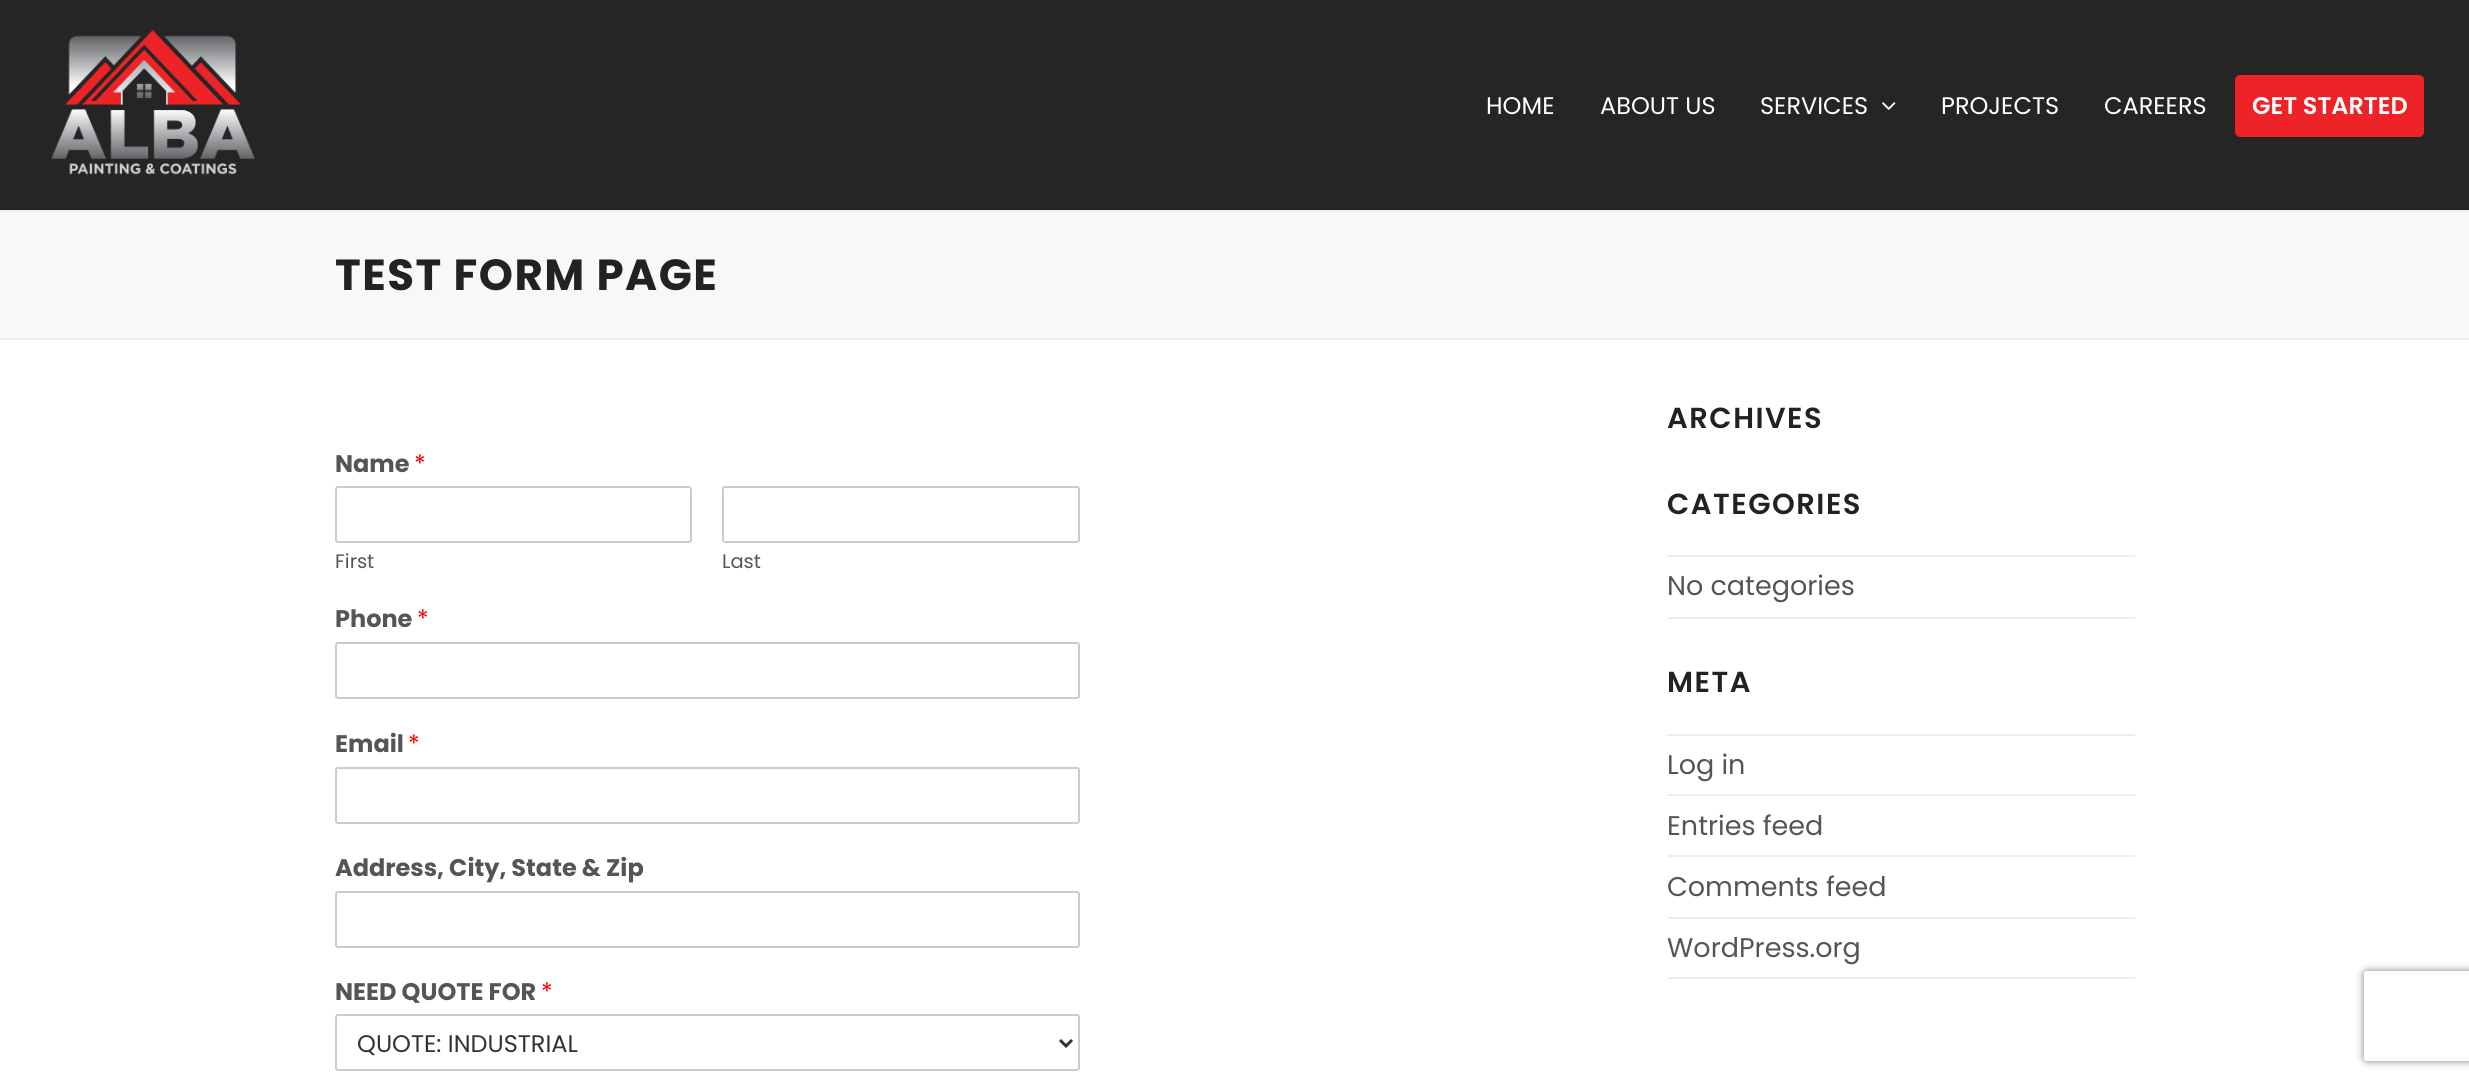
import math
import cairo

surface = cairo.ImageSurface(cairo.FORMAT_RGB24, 2469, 1081)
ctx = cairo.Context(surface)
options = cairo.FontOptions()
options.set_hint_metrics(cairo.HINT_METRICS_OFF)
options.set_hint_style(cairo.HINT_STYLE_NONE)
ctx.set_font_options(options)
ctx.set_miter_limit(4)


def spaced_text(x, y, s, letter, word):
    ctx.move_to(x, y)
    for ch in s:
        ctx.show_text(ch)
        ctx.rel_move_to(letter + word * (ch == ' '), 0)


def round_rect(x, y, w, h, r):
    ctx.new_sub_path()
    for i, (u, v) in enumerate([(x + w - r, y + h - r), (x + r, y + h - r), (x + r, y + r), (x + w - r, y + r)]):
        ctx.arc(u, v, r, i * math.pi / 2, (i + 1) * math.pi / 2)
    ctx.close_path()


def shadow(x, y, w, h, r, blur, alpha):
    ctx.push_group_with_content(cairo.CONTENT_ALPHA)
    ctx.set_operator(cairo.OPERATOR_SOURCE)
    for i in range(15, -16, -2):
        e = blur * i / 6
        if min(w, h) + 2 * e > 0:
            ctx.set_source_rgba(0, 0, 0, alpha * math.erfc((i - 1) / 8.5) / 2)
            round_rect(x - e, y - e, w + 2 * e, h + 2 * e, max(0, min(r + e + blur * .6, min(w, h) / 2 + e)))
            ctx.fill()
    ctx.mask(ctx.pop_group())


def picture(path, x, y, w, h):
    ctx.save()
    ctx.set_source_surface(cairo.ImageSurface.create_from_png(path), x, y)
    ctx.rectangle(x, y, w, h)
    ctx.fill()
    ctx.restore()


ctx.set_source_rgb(1, 1, 1)
ctx.paint()
ctx.set_source_rgb(0.145, 0.145, 0.145)
ctx.rectangle(0, 0, 2469, 210)
ctx.fill()
picture("img1.png", 51, 30, 204, 145)
ctx.select_font_face("Poppins")
ctx.set_font_size(24)
ctx.set_source_rgb(1, 1, 1)
ctx.move_to(1486, 114)
ctx.show_text("HOME")
ctx.move_to(1600, 114)
ctx.show_text("ABOUT US")
ctx.move_to(1760, 114)
ctx.show_text("SERVICES")
picture("img2.png", 1882, 102, 14, 8)
ctx.move_to(1941, 114)
ctx.show_text("PROJECTS")
ctx.move_to(2104, 114)
ctx.show_text("CAREERS")
ctx.set_source_rgb(0.929, 0.137, 0.153)
round_rect(2235, 75, 189, 62, 5)
ctx.fill()
ctx.select_font_face("Poppins SemiBold")
ctx.set_source_rgb(1, 1, 1)
ctx.move_to(2252, 114)
ctx.show_text("GET STARTED")
ctx.set_source_rgb(0.969, 0.969, 0.969)
ctx.rectangle(0, 212, 2469, 126)
ctx.fill()
ctx.set_source_rgb(0.933, 0.933, 0.933)
ctx.rectangle(0, 210, 2469, 2)
ctx.fill()
ctx.rectangle(0, 338, 2469, 2)
ctx.fill()
ctx.select_font_face("Poppins", cairo.FONT_SLANT_NORMAL, cairo.FONT_WEIGHT_BOLD)
ctx.set_font_size(43.5)
ctx.set_source_rgb(0.133, 0.133, 0.133)
spaced_text(335, 290, "TEST FORM PAGE", 1.5, 0)
ctx.set_font_size(24)
ctx.set_source_rgb(0.333, 0.333, 0.333)
ctx.move_to(335, 472)
ctx.show_text("Name")
ctx.select_font_face("Poppins")
ctx.set_source_rgb(1, 0, 0)
ctx.move_to(414, 472)
ctx.show_text("*")
round_rect(336, 487, 355, 55, 2)
ctx.set_source_rgb(0.8, 0.8, 0.8)
ctx.stroke()
ctx.set_font_size(19.5)
ctx.set_source_rgb(0.333, 0.333, 0.333)
ctx.move_to(335, 568)
ctx.show_text("First")
round_rect(723, 487, 356, 55, 2)
ctx.set_source_rgb(0.8, 0.8, 0.8)
ctx.stroke()
ctx.set_source_rgb(0.333, 0.333, 0.333)
ctx.move_to(722, 568)
ctx.show_text("Last")
ctx.select_font_face("Poppins", cairo.FONT_SLANT_NORMAL, cairo.FONT_WEIGHT_BOLD)
ctx.set_font_size(24)
ctx.move_to(335, 627)
ctx.show_text("Phone")
ctx.select_font_face("Poppins")
ctx.set_source_rgb(1, 0, 0)
ctx.move_to(417, 627)
ctx.show_text("*")
round_rect(336, 643, 743, 55, 2)
ctx.set_source_rgb(0.8, 0.8, 0.8)
ctx.stroke()
ctx.select_font_face("Poppins", cairo.FONT_SLANT_NORMAL, cairo.FONT_WEIGHT_BOLD)
ctx.set_source_rgb(0.333, 0.333, 0.333)
ctx.move_to(335, 752)
ctx.show_text("Email")
ctx.select_font_face("Poppins")
ctx.set_source_rgb(1, 0, 0)
ctx.move_to(408, 752)
ctx.show_text("*")
round_rect(336, 768, 743, 55, 2)
ctx.set_source_rgb(0.8, 0.8, 0.8)
ctx.stroke()
ctx.select_font_face("Poppins", cairo.FONT_SLANT_NORMAL, cairo.FONT_WEIGHT_BOLD)
ctx.set_source_rgb(0.333, 0.333, 0.333)
ctx.move_to(335, 876)
ctx.show_text("Address, City, State & Zip")
round_rect(336, 892, 743, 55, 2)
ctx.set_source_rgb(0.8, 0.8, 0.8)
ctx.stroke()
ctx.set_source_rgb(0.333, 0.333, 0.333)
ctx.move_to(335, 1000)
ctx.show_text("NEED QUOTE FOR")
ctx.select_font_face("Poppins")
ctx.set_source_rgb(1, 0, 0)
ctx.move_to(541, 1000)
ctx.show_text("*")
round_rect(336, 1015, 743, 55, 2)
ctx.set_source_rgb(0.8, 0.8, 0.8)
ctx.stroke()
ctx.new_path()
ctx.move_to(1060, 1040)
ctx.line_to(1066, 1046)
ctx.line_to(1072, 1040)
ctx.set_source_rgb(0.2, 0.2, 0.2)
ctx.set_line_width(3)
ctx.stroke()
ctx.move_to(357, 1052)
ctx.show_text("QUOTE: INDUSTRIAL")
ctx.save()
ctx.set_fill_rule(cairo.FILL_RULE_EVEN_ODD)
ctx.new_path()
ctx.move_to(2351, 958)
ctx.line_to(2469, 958)
ctx.line_to(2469, 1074)
ctx.line_to(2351, 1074)
ctx.close_path()
ctx.move_to(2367, 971)
ctx.line_to(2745, 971)
ctx.curve_to(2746.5, 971, 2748, 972.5, 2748, 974)
ctx.line_to(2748, 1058)
ctx.curve_to(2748, 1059.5, 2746.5, 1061, 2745, 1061)
ctx.line_to(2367, 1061)
ctx.curve_to(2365.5, 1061, 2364, 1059.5, 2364, 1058)
ctx.line_to(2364, 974)
ctx.curve_to(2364, 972.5, 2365.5, 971, 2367, 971)
ctx.close_path()
ctx.clip()
ctx.set_source_rgb(0.502, 0.502, 0.502)
shadow(2364, 971, 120, 90, 3, 4, 1)
ctx.restore()
ctx.select_font_face("Poppins SemiBold")
ctx.set_font_size(29)
ctx.set_source_rgb(0.133, 0.133, 0.133)
spaced_text(1667, 428, "ARCHIVES", 1.5, 0)
spaced_text(1667, 514, "CATEGORIES", 1.5, 0)
ctx.set_source_rgb(0.933, 0.933, 0.933)
ctx.rectangle(1667, 555, 468, 2)
ctx.fill()
ctx.rectangle(1667, 617, 468, 2)
ctx.fill()
ctx.select_font_face("Poppins")
ctx.set_font_size(27)
ctx.set_source_rgb(0.333, 0.333, 0.333)
ctx.move_to(1667, 595)
ctx.show_text("No categories")
ctx.select_font_face("Poppins SemiBold")
ctx.set_font_size(29)
ctx.set_source_rgb(0.133, 0.133, 0.133)
spaced_text(1667, 692, "META", 1.5, 0)
ctx.set_source_rgb(0.933, 0.933, 0.933)
ctx.rectangle(1667, 734, 468, 2)
ctx.fill()
ctx.rectangle(1667, 794, 468, 2)
ctx.fill()
ctx.select_font_face("Poppins")
ctx.set_font_size(27)
ctx.set_source_rgb(0.333, 0.333, 0.333)
ctx.move_to(1667, 774)
ctx.show_text("Log in")
ctx.set_source_rgb(0.933, 0.933, 0.933)
ctx.rectangle(1667, 855, 468, 2)
ctx.fill()
ctx.set_source_rgb(0.333, 0.333, 0.333)
ctx.move_to(1667, 835)
ctx.show_text("Entries feed")
ctx.set_source_rgb(0.933, 0.933, 0.933)
ctx.rectangle(1667, 917, 468, 2)
ctx.fill()
ctx.set_source_rgb(0.333, 0.333, 0.333)
ctx.move_to(1667, 896)
ctx.show_text("Comments feed")
ctx.set_source_rgb(0.933, 0.933, 0.933)
ctx.rectangle(1667, 977, 468, 2)
ctx.fill()
ctx.set_source_rgb(0.333, 0.333, 0.333)
ctx.move_to(1667, 957)
ctx.show_text("WordPress.org")
surface.write_to_png("page.png")
